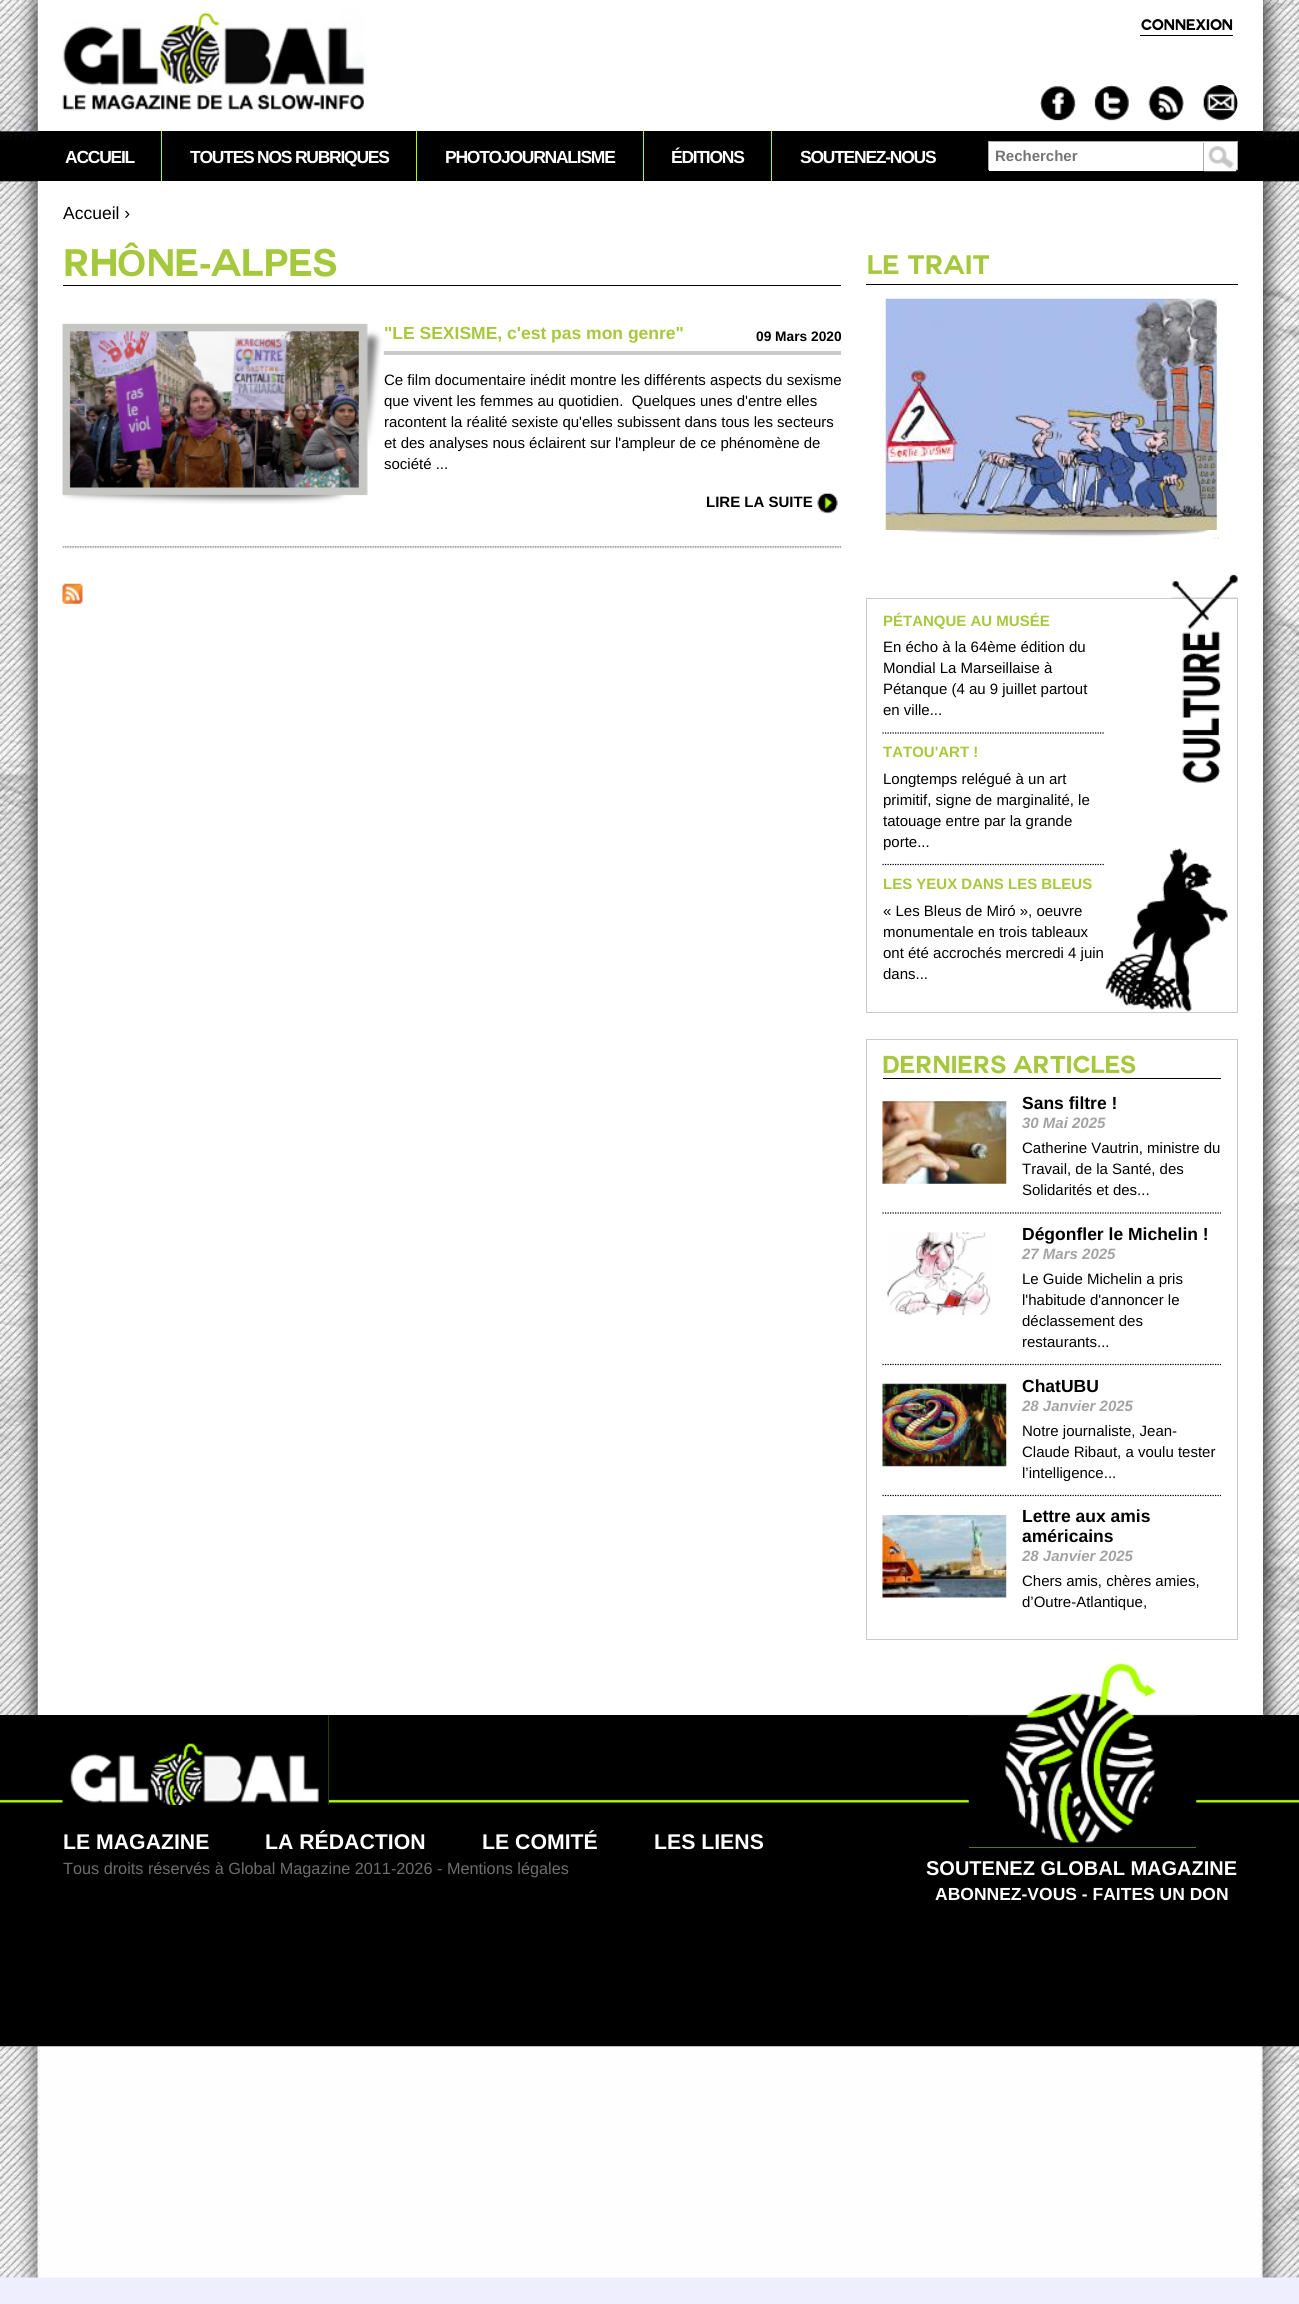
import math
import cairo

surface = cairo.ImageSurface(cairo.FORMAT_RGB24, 1299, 2304)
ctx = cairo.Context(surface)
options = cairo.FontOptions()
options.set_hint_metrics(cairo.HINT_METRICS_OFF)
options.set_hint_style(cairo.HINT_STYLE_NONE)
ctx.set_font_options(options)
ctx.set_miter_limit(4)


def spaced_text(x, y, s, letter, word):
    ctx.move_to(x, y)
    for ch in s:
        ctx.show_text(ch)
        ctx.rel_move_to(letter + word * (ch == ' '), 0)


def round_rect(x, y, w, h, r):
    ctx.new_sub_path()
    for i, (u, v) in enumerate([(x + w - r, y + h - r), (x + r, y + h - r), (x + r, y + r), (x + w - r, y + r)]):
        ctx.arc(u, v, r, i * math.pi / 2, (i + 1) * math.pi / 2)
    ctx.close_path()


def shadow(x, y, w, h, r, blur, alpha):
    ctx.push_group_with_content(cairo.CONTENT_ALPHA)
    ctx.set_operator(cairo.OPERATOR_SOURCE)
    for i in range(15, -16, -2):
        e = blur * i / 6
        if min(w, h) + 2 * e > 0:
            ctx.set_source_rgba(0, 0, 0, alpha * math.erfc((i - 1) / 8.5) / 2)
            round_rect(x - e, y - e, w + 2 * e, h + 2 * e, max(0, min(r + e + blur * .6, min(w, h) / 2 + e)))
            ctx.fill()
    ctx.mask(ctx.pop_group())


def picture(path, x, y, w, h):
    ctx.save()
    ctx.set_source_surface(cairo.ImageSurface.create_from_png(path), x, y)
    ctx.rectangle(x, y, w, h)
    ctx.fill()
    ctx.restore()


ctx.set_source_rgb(0.933, 0.933, 1)
ctx.paint()
picture("img1.png", 0, 0, 1299, 2278)
ctx.set_source_rgb(0, 0, 0)
shadow(38, 0, 1225, 131, 0, 9, 0.5)
ctx.set_source_rgb(0.675, 1, 0)
ctx.rectangle(0, 1799, 1299, 4)
ctx.fill()
picture("img21.png", 0, 1715, 1299, 332)
ctx.set_source_rgb(0, 0, 0)
shadow(38, 131, 1225, 1584, 0, 9, 0.5)
ctx.set_source_rgb(1, 1, 1)
ctx.rectangle(38, 0, 1225, 131)
ctx.fill()
picture("img2.png", 62, 10, 303, 101)
ctx.select_font_face("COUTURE", cairo.FONT_SLANT_NORMAL, cairo.FONT_WEIGHT_BOLD)
ctx.set_font_size(15)
ctx.set_source_rgb(0, 0, 0)
ctx.move_to(1141, 30)
ctx.show_text("CONNEXION")
ctx.rectangle(1140, 35, 93, 1)
ctx.fill()
picture("img3.png", 1040, 86, 36, 35)
picture("img4.png", 1094, 85, 35, 36)
picture("img5.png", 1148, 86, 36, 35)
picture("img6.png", 1203, 85, 35, 36)
ctx.set_source_rgb(1, 1, 1)
ctx.rectangle(38, 181, 1225, 1534)
ctx.fill()
ctx.set_source_rgb(0, 0, 0)
ctx.rectangle(38, 131, 1225, 50)
ctx.fill()
ctx.select_font_face("Liberation Sans", cairo.FONT_SLANT_NORMAL, cairo.FONT_WEIGHT_BOLD)
ctx.set_font_size(17.5)
ctx.set_source_rgb(1, 1, 1)
spaced_text(65, 163, "ACCUEIL", -1.25, 0)
ctx.set_source_rgb(0.675, 1, 0)
ctx.rectangle(161, 131, 1, 50)
ctx.fill()
ctx.set_source_rgb(1, 1, 1)
spaced_text(190, 163, "TOUTES NOS RUBRIQUES", -1.25, 0)
ctx.set_source_rgb(0.675, 1, 0)
ctx.rectangle(416, 131, 1, 50)
ctx.fill()
ctx.set_source_rgb(1, 1, 1)
spaced_text(445, 163, "PHOTOJOURNALISME", -1.25, 0)
ctx.set_source_rgb(0.675, 1, 0)
ctx.rectangle(643, 131, 1, 50)
ctx.fill()
ctx.set_source_rgb(1, 1, 1)
spaced_text(671, 163, "ÉDITIONS", -1.25, 0)
ctx.set_source_rgb(0.675, 1, 0)
ctx.rectangle(771, 131, 1, 50)
ctx.fill()
ctx.set_source_rgb(1, 1, 1)
spaced_text(800, 163, "SOUTENEZ-NOUS", -1.25, 0)
ctx.rectangle(988.5, 141.5, 249, 28)
ctx.fill_preserve()
ctx.set_source_rgb(0.671, 0.671, 0.671)
ctx.set_line_width(1)
ctx.stroke()
ctx.set_source_rgb(1, 1, 1)
ctx.rectangle(989, 169, 247, 2)
ctx.fill()
ctx.set_font_size(15)
ctx.set_source_rgb(0.459, 0.459, 0.459)
ctx.move_to(995, 161)
ctx.show_text("Rechercher")
picture("img7.png", 1203, 146, 34, 26)
ctx.set_source_rgb(0.671, 0.671, 0.671)
ctx.rectangle(1203, 143, 1, 28)
ctx.fill()
ctx.select_font_face("Liberation Sans")
ctx.set_font_size(17.5)
ctx.set_source_rgb(0, 0, 0)
ctx.move_to(63, 219)
ctx.show_text("Accueil ›")
ctx.rectangle(63, 285, 778, 1)
ctx.fill()
ctx.select_font_face("COUTURE", cairo.FONT_SLANT_NORMAL, cairo.FONT_WEIGHT_BOLD)
ctx.set_font_size(37.5)
ctx.set_source_rgb(0.651, 0.784, 0.235)
ctx.move_to(63, 276)
ctx.show_text("RH")
ctx.select_font_face("Liberation Sans", cairo.FONT_SLANT_NORMAL, cairo.FONT_WEIGHT_BOLD)
ctx.move_to(117, 276)
ctx.show_text("Ô")
ctx.select_font_face("COUTURE", cairo.FONT_SLANT_NORMAL, cairo.FONT_WEIGHT_BOLD)
ctx.move_to(147, 276)
ctx.show_text("NE")
ctx.select_font_face("Liberation Sans", cairo.FONT_SLANT_NORMAL, cairo.FONT_WEIGHT_BOLD)
ctx.move_to(199, 276)
ctx.show_text("-")
ctx.select_font_face("COUTURE", cairo.FONT_SLANT_NORMAL, cairo.FONT_WEIGHT_BOLD)
ctx.move_to(211, 276)
ctx.show_text("ALPES")
picture("img8.png", 62, 546, 780, 3)
ctx.set_source_rgb(0.792, 0.792, 0.792)
ctx.rectangle(383, 351, 458, 4)
ctx.fill()
picture("img9.png", 62, 323, 322, 181)
ctx.select_font_face("Liberation Sans", cairo.FONT_SLANT_NORMAL, cairo.FONT_WEIGHT_BOLD)
ctx.set_font_size(17.5)
ctx.set_source_rgb(0.651, 0.784, 0.235)
ctx.move_to(384, 339)
ctx.show_text("\"LE SEXISME, c'est pas mon genre\"")
ctx.set_font_size(13.75)
ctx.set_source_rgb(0, 0, 0)
ctx.move_to(756, 341)
ctx.show_text("09 Mars 2020")
ctx.select_font_face("Liberation Sans")
ctx.set_font_size(15)
ctx.move_to(384, 385)
ctx.show_text("Ce film documentaire inédit montre les différents aspects du sexisme")
ctx.move_to(384, 406)
ctx.show_text("que vivent les femmes au quotidien.  Quelques unes d'entre elles")
ctx.move_to(384, 427)
ctx.show_text("racontent la réalité sexiste qu'elles subissent dans tous les secteurs")
ctx.move_to(384, 448)
ctx.show_text("et des analyses nous éclairent sur l'ampleur de ce phénomène de")
ctx.move_to(384, 469)
ctx.show_text("société ...")
ctx.select_font_face("Liberation Sans", cairo.FONT_SLANT_NORMAL, cairo.FONT_WEIGHT_BOLD)
ctx.move_to(706, 507)
ctx.show_text("LIRE LA SUITE")
picture("img10.png", 817, 492, 21, 22)
picture("img11.png", 62, 583, 21, 21)
ctx.rectangle(866, 284, 372, 1)
ctx.fill()
ctx.select_font_face("COUTURE", cairo.FONT_SLANT_NORMAL, cairo.FONT_WEIGHT_BOLD)
ctx.set_font_size(26.25)
ctx.set_source_rgb(0.651, 0.784, 0.235)
ctx.move_to(867, 274)
ctx.show_text("LE TRAIT")
picture("img12.png", 896, 530, 323, 9)
picture("img13.png", 884, 298, 335, 232)
picture("img15.png", 1182, 599, 39, 184)
ctx.rectangle(866.5, 598.5, 371, 414)
ctx.set_source_rgb(0.792, 0.792, 0.792)
ctx.stroke()
picture("img14.png", 1171, 574, 67, 25)
picture("img16.png", 1105, 848, 123, 164)
ctx.new_path()
ctx.move_to(882.5, 733)
ctx.line_to(1105, 733)
ctx.set_source_rgb(0, 0, 0)
ctx.set_line_width(1.2)
ctx.set_dash([1.25, 1.25])
ctx.stroke()
ctx.select_font_face("Liberation Sans", cairo.FONT_SLANT_NORMAL, cairo.FONT_WEIGHT_BOLD)
ctx.set_font_size(15)
ctx.set_source_rgb(0.651, 0.784, 0.235)
ctx.move_to(883, 626)
ctx.show_text("PÉTANQUE AU MUSÉE")
ctx.select_font_face("Liberation Sans")
ctx.set_source_rgb(0, 0, 0)
ctx.move_to(883, 652)
ctx.show_text("En écho à la 64ème édition du")
ctx.move_to(883, 673)
ctx.show_text("Mondial La Marseillaise à")
ctx.move_to(883, 694)
ctx.show_text("Pétanque (4 au 9 juillet partout")
ctx.move_to(883, 715)
ctx.show_text("en ville...")
ctx.new_path()
ctx.move_to(882.5, 864.5)
ctx.line_to(1105, 864.5)
ctx.stroke()
ctx.select_font_face("Liberation Sans", cairo.FONT_SLANT_NORMAL, cairo.FONT_WEIGHT_BOLD)
ctx.set_source_rgb(0.651, 0.784, 0.235)
ctx.move_to(883, 757)
ctx.show_text("TATOU'ART !")
ctx.select_font_face("Liberation Sans")
ctx.set_source_rgb(0, 0, 0)
ctx.move_to(883, 784)
ctx.show_text("Longtemps relégué à un art")
ctx.move_to(883, 805)
ctx.show_text("primitif, signe de marginalité, le")
ctx.move_to(883, 826)
ctx.show_text("tatouage entre par la grande")
ctx.move_to(883, 847)
ctx.show_text("porte...")
ctx.select_font_face("Liberation Sans", cairo.FONT_SLANT_NORMAL, cairo.FONT_WEIGHT_BOLD)
ctx.set_source_rgb(0.651, 0.784, 0.235)
ctx.move_to(883, 889)
ctx.show_text("LES YEUX DANS LES BLEUS")
ctx.select_font_face("Liberation Sans")
ctx.set_source_rgb(0, 0, 0)
ctx.move_to(883, 916)
ctx.show_text("« Les Bleus de Miró », oeuvre")
ctx.move_to(883, 937)
ctx.show_text("monumentale en trois tableaux")
ctx.move_to(883, 958)
ctx.show_text("ont été accrochés mercredi 4 juin")
ctx.move_to(883, 979)
ctx.show_text("dans...")
ctx.rectangle(866.5, 1039.5, 371, 600)
ctx.set_source_rgb(0.792, 0.792, 0.792)
ctx.set_line_width(1)
ctx.set_dash([])
ctx.stroke()
ctx.set_source_rgb(0, 0, 0)
ctx.rectangle(883, 1078, 338, 1)
ctx.fill()
ctx.select_font_face("COUTURE", cairo.FONT_SLANT_NORMAL, cairo.FONT_WEIGHT_BOLD)
ctx.set_font_size(24)
ctx.set_source_rgb(0.651, 0.784, 0.235)
ctx.move_to(882, 1073)
ctx.show_text("DERNIERS ARTICLES")
ctx.new_path()
ctx.move_to(882.5, 1213)
ctx.line_to(1221, 1213)
ctx.set_source_rgb(0, 0, 0)
ctx.set_line_width(1.2)
ctx.set_dash([1.25, 1.25])
ctx.stroke()
picture("img17.png", 882, 1101, 125, 83)
ctx.select_font_face("Liberation Sans", cairo.FONT_SLANT_NORMAL, cairo.FONT_WEIGHT_BOLD)
ctx.set_font_size(17.5)
ctx.move_to(1022, 1109)
ctx.show_text("Sans filtre !")
ctx.select_font_face("Liberation Sans", cairo.FONT_SLANT_ITALIC, cairo.FONT_WEIGHT_BOLD)
ctx.set_font_size(15)
ctx.set_source_rgb(0.639, 0.639, 0.639)
ctx.move_to(1022, 1128)
ctx.show_text("30 Mai 2025")
ctx.select_font_face("Liberation Sans")
ctx.set_source_rgb(0, 0, 0)
ctx.move_to(1022, 1153)
ctx.show_text("Catherine Vautrin, ministre du")
ctx.move_to(1022, 1174)
ctx.show_text("Travail, de la Santé, des")
ctx.move_to(1022, 1195)
ctx.show_text("Solidarités et des...")
ctx.new_path()
ctx.move_to(882.5, 1364.5)
ctx.line_to(1221, 1364.5)
ctx.stroke()
picture("img18.png", 887, 1232, 104, 83)
ctx.select_font_face("Liberation Sans", cairo.FONT_SLANT_NORMAL, cairo.FONT_WEIGHT_BOLD)
ctx.set_font_size(17.5)
ctx.move_to(1022, 1240)
ctx.show_text("Dégonfler le Michelin !")
ctx.select_font_face("Liberation Sans", cairo.FONT_SLANT_ITALIC, cairo.FONT_WEIGHT_BOLD)
ctx.set_font_size(15)
ctx.set_source_rgb(0.639, 0.639, 0.639)
ctx.move_to(1022, 1259)
ctx.show_text("27 Mars 2025")
ctx.select_font_face("Liberation Sans")
ctx.set_source_rgb(0, 0, 0)
ctx.move_to(1022, 1284)
ctx.show_text("Le Guide Michelin a pris")
ctx.move_to(1022, 1305)
ctx.show_text("l'habitude d'annoncer le")
ctx.move_to(1022, 1326)
ctx.show_text("déclassement des")
ctx.move_to(1022, 1347)
ctx.show_text("restaurants...")
ctx.new_path()
ctx.move_to(882.5, 1495.5)
ctx.line_to(1221, 1495.5)
ctx.stroke()
picture("img19.png", 882, 1383, 125, 84)
ctx.select_font_face("Liberation Sans", cairo.FONT_SLANT_NORMAL, cairo.FONT_WEIGHT_BOLD)
ctx.set_font_size(17.5)
ctx.move_to(1022, 1392)
ctx.show_text("ChatUBU")
ctx.select_font_face("Liberation Sans", cairo.FONT_SLANT_ITALIC, cairo.FONT_WEIGHT_BOLD)
ctx.set_font_size(15)
ctx.set_source_rgb(0.639, 0.639, 0.639)
ctx.move_to(1022, 1411)
ctx.show_text("28 Janvier 2025")
ctx.select_font_face("Liberation Sans")
ctx.set_source_rgb(0, 0, 0)
ctx.move_to(1022, 1436)
ctx.show_text("Notre journaliste, Jean-")
ctx.move_to(1022, 1457)
ctx.show_text("Claude Ribaut, a voulu tester")
ctx.move_to(1022, 1478)
ctx.show_text("l’intelligence...")
picture("img20.png", 882, 1515, 125, 83)
ctx.select_font_face("Liberation Sans", cairo.FONT_SLANT_NORMAL, cairo.FONT_WEIGHT_BOLD)
ctx.set_font_size(17.5)
ctx.move_to(1022, 1522)
ctx.show_text("Lettre aux amis")
ctx.move_to(1022, 1542)
ctx.show_text("américains")
ctx.select_font_face("Liberation Sans", cairo.FONT_SLANT_ITALIC, cairo.FONT_WEIGHT_BOLD)
ctx.set_font_size(15)
ctx.set_source_rgb(0.639, 0.639, 0.639)
ctx.move_to(1022, 1561)
ctx.show_text("28 Janvier 2025")
ctx.select_font_face("Liberation Sans")
ctx.set_source_rgb(0, 0, 0)
ctx.move_to(1022, 1586)
ctx.show_text("Chers amis, chères amies,")
ctx.move_to(1022, 1607)
ctx.show_text("d’Outre-Atlantique,")
ctx.set_source_rgb(0.675, 1, 0)
ctx.rectangle(158, 1715, 171, 90)
ctx.fill()
picture("img22.png", 62, 1715, 267, 90)
ctx.select_font_face("Liberation Sans", cairo.FONT_SLANT_NORMAL, cairo.FONT_WEIGHT_BOLD)
ctx.set_font_size(21.25)
ctx.set_source_rgb(1, 1, 1)
ctx.move_to(63, 1849)
ctx.show_text("LE MAGAZINE")
ctx.move_to(265, 1849)
ctx.show_text("LA RÉDACTION")
ctx.move_to(482, 1849)
ctx.show_text("LE COMITÉ")
ctx.move_to(654, 1849)
ctx.show_text("LES LIENS")
ctx.select_font_face("Liberation Sans")
ctx.set_font_size(16.25)
ctx.set_source_rgb(0.431, 0.431, 0.431)
ctx.move_to(63, 1874)
ctx.show_text("Tous droits réservés à Global Magazine 2011-2026 - Mentions légales")
ctx.set_source_rgb(0.675, 1, 0)
ctx.rectangle(969, 1663, 227, 185)
ctx.fill()
picture("img23.png", 968, 1663, 229, 185)
ctx.select_font_face("Liberation Sans", cairo.FONT_SLANT_NORMAL, cairo.FONT_WEIGHT_BOLD)
ctx.set_font_size(20)
ctx.set_source_rgb(1, 1, 1)
ctx.move_to(926, 1875)
ctx.show_text("SOUTENEZ GLOBAL MAGAZINE")
ctx.set_font_size(17.5)
ctx.move_to(935, 1900)
ctx.show_text("ABONNEZ-VOUS - FAITES UN DON")
surface.write_to_png("page.png")
